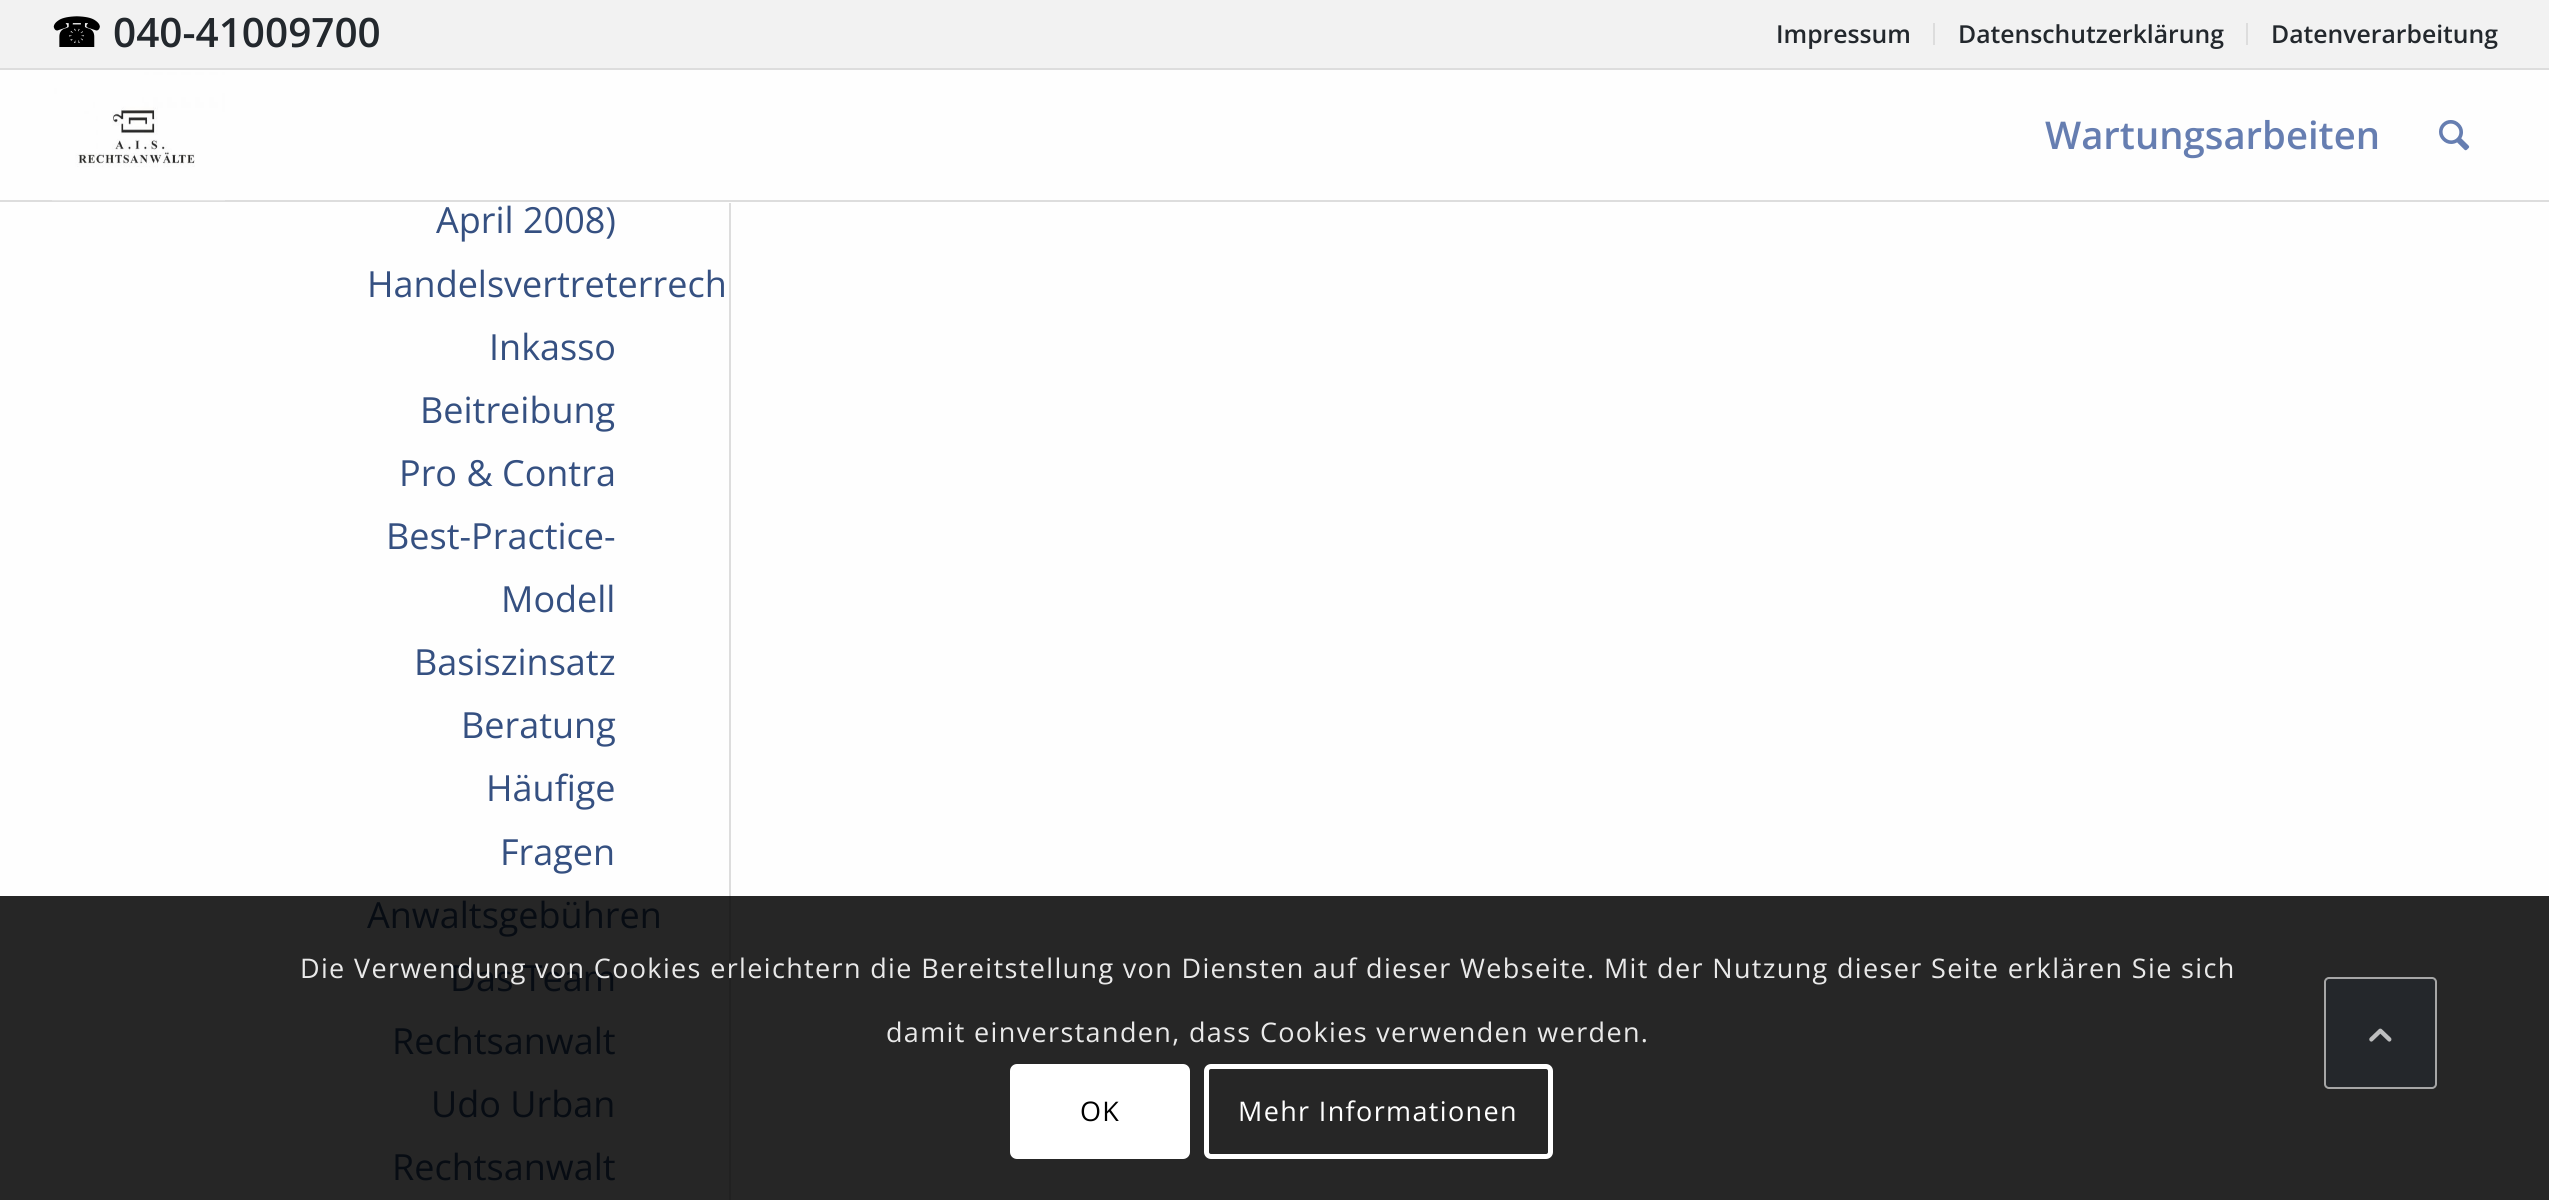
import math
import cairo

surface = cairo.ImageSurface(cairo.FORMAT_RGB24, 2549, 1200)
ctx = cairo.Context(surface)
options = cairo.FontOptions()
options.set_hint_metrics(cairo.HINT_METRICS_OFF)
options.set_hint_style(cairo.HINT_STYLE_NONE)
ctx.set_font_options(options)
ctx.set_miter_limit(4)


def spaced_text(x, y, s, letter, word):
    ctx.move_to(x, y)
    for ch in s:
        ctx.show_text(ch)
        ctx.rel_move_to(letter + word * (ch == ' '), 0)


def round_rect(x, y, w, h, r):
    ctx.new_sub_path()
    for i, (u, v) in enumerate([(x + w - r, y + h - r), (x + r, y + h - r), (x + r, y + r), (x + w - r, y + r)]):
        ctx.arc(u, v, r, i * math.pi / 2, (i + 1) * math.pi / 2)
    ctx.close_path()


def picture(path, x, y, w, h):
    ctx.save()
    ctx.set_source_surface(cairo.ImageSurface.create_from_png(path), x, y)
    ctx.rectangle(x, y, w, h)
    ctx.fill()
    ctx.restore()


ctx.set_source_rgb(0.996, 0.996, 0.996)
ctx.paint()
ctx.set_source_rgb(0.949, 0.949, 0.949)
ctx.rectangle(0, 0, 2549, 68)
ctx.fill()
ctx.set_source_rgb(0.867, 0.867, 0.867)
ctx.rectangle(0, 68, 2549, 2)
ctx.fill()
ctx.select_font_face("DejaVu Sans", cairo.FONT_SLANT_NORMAL, cairo.FONT_WEIGHT_BOLD)
ctx.set_font_size(40.5)
ctx.set_source_rgb(0, 0, 0)
ctx.move_to(51, 47)
ctx.show_text("☎")
ctx.select_font_face("Open Sans SemiBold")
ctx.set_source_rgb(0.137, 0.157, 0.176)
ctx.move_to(113, 47)
ctx.show_text("040-41009700")
ctx.set_source_rgb(0.867, 0.867, 0.867)
ctx.rectangle(1933, 23, 2, 22)
ctx.fill()
ctx.set_font_size(24.75)
ctx.set_source_rgb(0.137, 0.157, 0.176)
ctx.move_to(1776, 43)
ctx.show_text("Impressum")
ctx.set_source_rgb(0.867, 0.867, 0.867)
ctx.rectangle(2246, 23, 2, 22)
ctx.fill()
ctx.set_source_rgb(0.137, 0.157, 0.176)
ctx.move_to(1958, 43)
ctx.show_text("Datenschutzerklärung")
ctx.move_to(2271, 43)
ctx.show_text("Datenverarbeitung")
ctx.set_source_rgb(0.867, 0.867, 0.867)
ctx.rectangle(0, 200, 2549, 2)
ctx.fill()
picture("img1.png", 52, 70, 173, 131)
ctx.set_font_size(38.25)
ctx.set_source_rgb(0.4, 0.494, 0.694)
ctx.move_to(2045, 149)
ctx.show_text("Wartungsarbeiten")
picture("img2.png", 2439, 120, 31, 31)
ctx.set_source_rgb(0.149, 0.149, 0.149)
ctx.rectangle(0, 896, 2549, 304)
ctx.fill()
ctx.set_source_rgb(0.867, 0.867, 0.867)
ctx.rectangle(729, 203, 2, 693)
ctx.fill()
ctx.set_source_rgb(0.129, 0.129, 0.129)
ctx.rectangle(729, 896, 2, 304)
ctx.fill()
ctx.select_font_face("Open Sans")
ctx.set_font_size(36)
ctx.set_source_rgb(0.208, 0.314, 0.506)
ctx.move_to(436, 233)
ctx.show_text("April 2008)")
ctx.move_to(367, 297)
ctx.show_text("Handelsvertreterrech")
ctx.move_to(489, 360)
ctx.show_text("Inkasso")
ctx.move_to(420, 423)
ctx.show_text("Beitreibung")
ctx.move_to(399, 486)
ctx.show_text("Pro & Contra")
ctx.move_to(386, 549)
ctx.show_text("Best-Practice-")
ctx.move_to(501, 612)
ctx.show_text("Modell")
ctx.move_to(414, 675)
ctx.show_text("Basiszinsatz")
ctx.move_to(461, 738)
ctx.show_text("Beratung")
ctx.move_to(486, 801)
ctx.show_text("Häufige")
ctx.move_to(500, 865)
ctx.show_text("Fragen")
ctx.set_source_rgb(0.031, 0.047, 0.075)
ctx.move_to(367, 928)
ctx.show_text("Anwaltsgebühren")
ctx.move_to(450, 991)
ctx.show_text("Das Team")
ctx.move_to(392, 1054)
ctx.show_text("Rechtsanwalt")
ctx.move_to(431, 1117)
ctx.show_text("Udo Urban")
ctx.move_to(392, 1180)
ctx.show_text("Rechtsanwalt")
ctx.set_font_size(27)
ctx.set_source_rgb(0.914, 0.914, 0.914)
spaced_text(300, 978, "Die Verwendung von Cookies erleichtern die Bereitstellung von Diensten auf dieser Webseite. Mit der Nutzung dieser Seite erklären Sie sich", 1.35, 0)
spaced_text(886, 1042, "damit einverstanden, dass Cookies verwenden werden.", 1.35, 0)
ctx.set_source_rgb(1, 1, 1)
round_rect(1010, 1064, 180, 95, 7)
ctx.fill()
ctx.set_source_rgb(0, 0, 0)
spaced_text(1080, 1121, "OK", 1.35, 0)
round_rect(1206.5, 1066.5, 344, 90, 4.5)
ctx.set_source_rgb(1, 1, 1)
ctx.set_line_width(5)
ctx.stroke()
spaced_text(1238, 1121, "Mehr Informationen", 1.35, 0)
ctx.set_source_rgb(0.141, 0.153, 0.169)
round_rect(2325, 978, 111, 110, 4)
ctx.fill_preserve()
ctx.set_source_rgb(0.651, 0.651, 0.651)
ctx.set_line_width(2)
ctx.stroke()
picture("img3.png", 2369, 1028, 23, 14)
surface.write_to_png("page.png")
